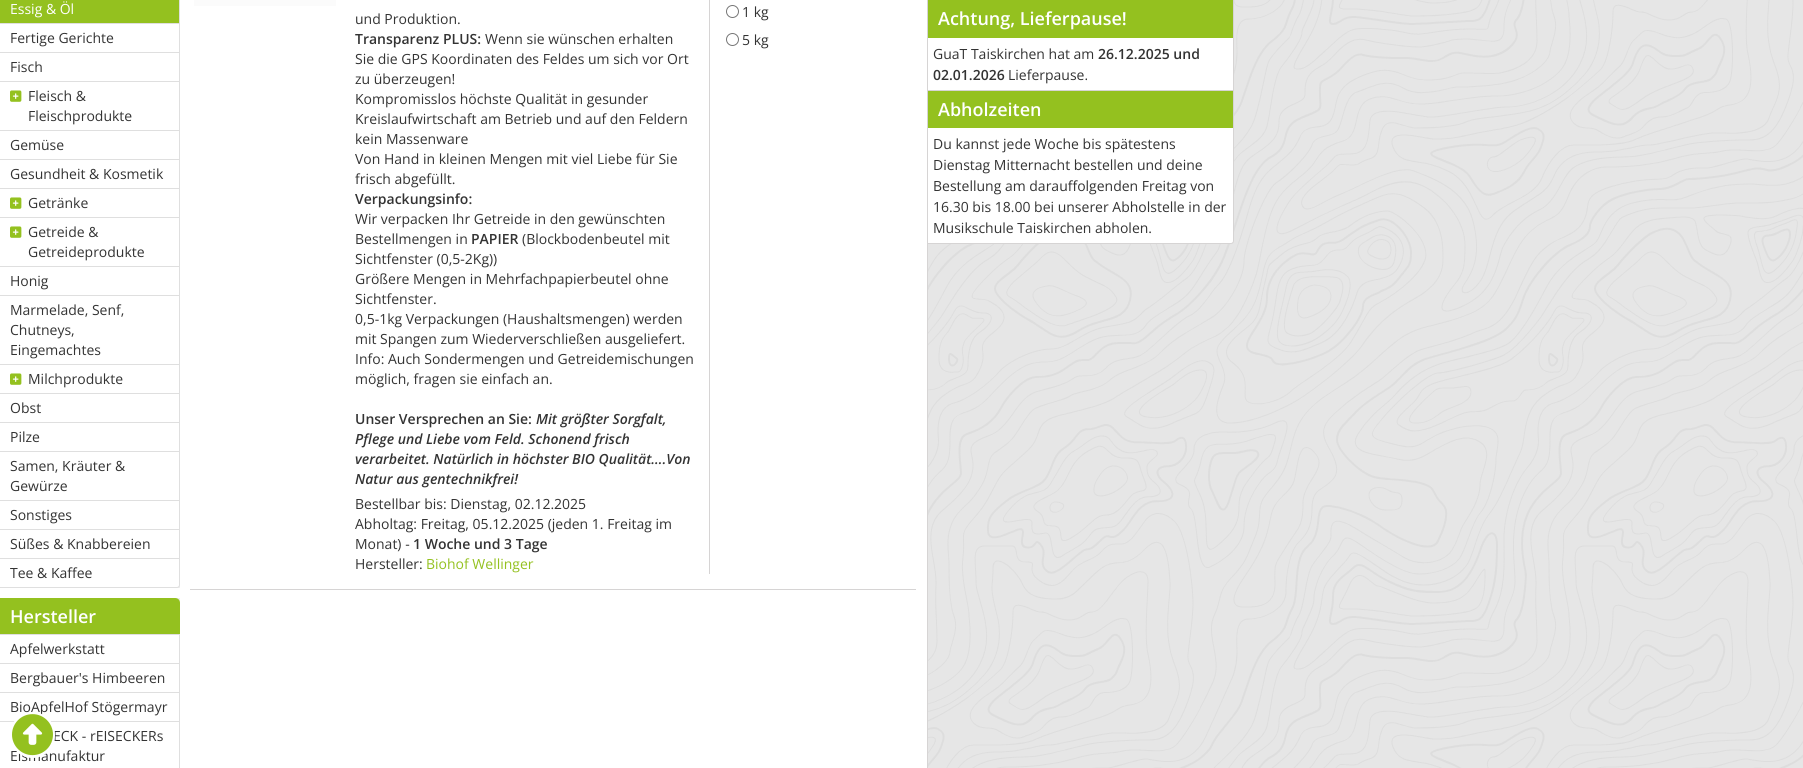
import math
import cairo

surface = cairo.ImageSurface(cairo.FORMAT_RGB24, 1803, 768)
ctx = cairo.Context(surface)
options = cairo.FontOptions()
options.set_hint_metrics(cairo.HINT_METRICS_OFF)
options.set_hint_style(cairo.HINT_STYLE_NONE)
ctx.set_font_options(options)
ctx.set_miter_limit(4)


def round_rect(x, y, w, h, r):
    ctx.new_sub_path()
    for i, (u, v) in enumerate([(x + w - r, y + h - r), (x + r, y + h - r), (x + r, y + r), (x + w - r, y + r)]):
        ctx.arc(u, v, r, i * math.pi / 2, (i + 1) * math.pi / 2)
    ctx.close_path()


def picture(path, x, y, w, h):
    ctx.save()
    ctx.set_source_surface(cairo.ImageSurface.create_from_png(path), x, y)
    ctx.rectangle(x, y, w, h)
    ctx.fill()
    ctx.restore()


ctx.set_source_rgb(0.902, 0.902, 0.902)
ctx.paint()
picture("img1.png", 928, 0, 875, 768)
ctx.set_source_rgb(1, 1, 1)
ctx.rectangle(0, 0, 927, 768)
ctx.fill()
ctx.set_source_rgb(0.839, 0.831, 0.831)
ctx.rectangle(927, 0, 1, 768)
ctx.fill()
ctx.set_source_rgb(0.937, 0.937, 0.937)
ctx.rectangle(177, 585, 3, 3)
ctx.fill()
ctx.set_source_rgb(0.58, 0.757, 0.122)
ctx.rectangle(0, 0, 179, 23)
ctx.fill()
ctx.set_source_rgb(0.875, 0.875, 0.875)
ctx.rectangle(179, 0, 1, 559)
ctx.fill()
ctx.rectangle(0, 23, 180, 1)
ctx.fill()
ctx.select_font_face("Open Sans")
ctx.set_font_size(14)
ctx.set_source_rgb(1, 1, 1)
ctx.move_to(10, 14)
ctx.show_text("Essig & Öl")
ctx.set_source_rgb(0.875, 0.875, 0.875)
ctx.rectangle(0, 52, 180, 1)
ctx.fill()
ctx.set_source_rgb(0.2, 0.2, 0.2)
ctx.move_to(10, 43)
ctx.show_text("Fertige Gerichte")
ctx.set_source_rgb(0.875, 0.875, 0.875)
ctx.rectangle(0, 81, 180, 1)
ctx.fill()
ctx.set_source_rgb(0.2, 0.2, 0.2)
ctx.move_to(10, 72)
ctx.show_text("Fisch")
ctx.set_source_rgb(0.875, 0.875, 0.875)
ctx.rectangle(0, 130, 180, 1)
ctx.fill()
picture("img2.png", 10, 90, 12, 12)
ctx.set_source_rgb(0.2, 0.2, 0.2)
ctx.move_to(28, 101)
ctx.show_text("Fleisch &")
ctx.move_to(28, 121)
ctx.show_text("Fleischprodukte")
ctx.set_source_rgb(0.875, 0.875, 0.875)
ctx.rectangle(0, 159, 180, 1)
ctx.fill()
ctx.set_source_rgb(0.2, 0.2, 0.2)
ctx.move_to(10, 150)
ctx.show_text("Gemüse")
ctx.set_source_rgb(0.875, 0.875, 0.875)
ctx.rectangle(0, 188, 180, 1)
ctx.fill()
ctx.set_source_rgb(0.2, 0.2, 0.2)
ctx.move_to(10, 179)
ctx.show_text("Gesundheit & Kosmetik")
ctx.set_source_rgb(0.875, 0.875, 0.875)
ctx.rectangle(0, 217, 180, 1)
ctx.fill()
picture("img2.png", 10, 197, 12, 12)
ctx.set_source_rgb(0.2, 0.2, 0.2)
ctx.move_to(28, 208)
ctx.show_text("Getränke")
ctx.set_source_rgb(0.875, 0.875, 0.875)
ctx.rectangle(0, 266, 180, 1)
ctx.fill()
picture("img2.png", 10, 226, 12, 12)
ctx.set_source_rgb(0.2, 0.2, 0.2)
ctx.move_to(28, 237)
ctx.show_text("Getreide &")
ctx.move_to(28, 257)
ctx.show_text("Getreideprodukte")
ctx.set_source_rgb(0.875, 0.875, 0.875)
ctx.rectangle(0, 295, 180, 1)
ctx.fill()
ctx.set_source_rgb(0.2, 0.2, 0.2)
ctx.move_to(10, 286)
ctx.show_text("Honig")
ctx.set_source_rgb(0.875, 0.875, 0.875)
ctx.rectangle(0, 364, 180, 1)
ctx.fill()
ctx.set_source_rgb(0.2, 0.2, 0.2)
ctx.move_to(10, 315)
ctx.show_text("Marmelade, Senf,")
ctx.move_to(10, 335)
ctx.show_text("Chutneys,")
ctx.move_to(10, 355)
ctx.show_text("Eingemachtes")
ctx.set_source_rgb(0.875, 0.875, 0.875)
ctx.rectangle(0, 393, 180, 1)
ctx.fill()
picture("img2.png", 10, 373, 12, 12)
ctx.set_source_rgb(0.2, 0.2, 0.2)
ctx.move_to(28, 384)
ctx.show_text("Milchprodukte")
ctx.set_source_rgb(0.875, 0.875, 0.875)
ctx.rectangle(0, 422, 180, 1)
ctx.fill()
ctx.set_source_rgb(0.2, 0.2, 0.2)
ctx.move_to(10, 413)
ctx.show_text("Obst")
ctx.set_source_rgb(0.875, 0.875, 0.875)
ctx.rectangle(0, 451, 180, 1)
ctx.fill()
ctx.set_source_rgb(0.2, 0.2, 0.2)
ctx.move_to(10, 442)
ctx.show_text("Pilze")
ctx.set_source_rgb(0.875, 0.875, 0.875)
ctx.rectangle(0, 500, 180, 1)
ctx.fill()
ctx.set_source_rgb(0.2, 0.2, 0.2)
ctx.move_to(10, 471)
ctx.show_text("Samen, Kräuter &")
ctx.move_to(10, 491)
ctx.show_text("Gewürze")
ctx.set_source_rgb(0.875, 0.875, 0.875)
ctx.rectangle(0, 529, 180, 1)
ctx.fill()
ctx.set_source_rgb(0.2, 0.2, 0.2)
ctx.move_to(10, 520)
ctx.show_text("Sonstiges")
ctx.set_source_rgb(0.875, 0.875, 0.875)
ctx.rectangle(0, 558, 180, 1)
ctx.fill()
ctx.set_source_rgb(0.2, 0.2, 0.2)
ctx.move_to(10, 549)
ctx.show_text("Süßes & Knabbereien")
ctx.set_source_rgb(1, 1, 1)
ctx.new_path()
ctx.move_to(0, 559)
ctx.line_to(180, 559)
ctx.line_to(180, 585)
ctx.curve_to(180, 586.5, 178.5, 588, 177, 588)
ctx.line_to(0, 588)
ctx.close_path()
ctx.fill()
ctx.set_source_rgb(0.875, 0.875, 0.875)
ctx.set_fill_rule(cairo.FILL_RULE_EVEN_ODD)
ctx.new_path()
ctx.move_to(0, 559)
ctx.line_to(180, 559)
ctx.line_to(180, 585)
ctx.curve_to(180, 587, 179, 588, 177, 588)
ctx.line_to(0, 588)
ctx.close_path()
ctx.move_to(0, 559)
ctx.line_to(179, 559)
ctx.line_to(179, 585)
ctx.curve_to(179, 586, 178, 587, 177, 587)
ctx.line_to(0, 587)
ctx.close_path()
ctx.fill()
ctx.set_source_rgb(0.2, 0.2, 0.2)
ctx.move_to(10, 578)
ctx.show_text("Tee & Kaffee")
ctx.set_source_rgb(0.937, 0.937, 0.937)
ctx.rectangle(175, 598, 5, 5)
ctx.fill()
ctx.set_source_rgb(0.58, 0.757, 0.122)
ctx.new_path()
ctx.move_to(0, 598)
ctx.line_to(175, 598)
ctx.curve_to(178, 598, 180, 600, 180, 603)
ctx.line_to(180, 635)
ctx.line_to(0, 635)
ctx.close_path()
ctx.fill()
ctx.set_source_rgb(0.875, 0.875, 0.875)
ctx.rectangle(0, 634, 180, 1)
ctx.fill()
ctx.select_font_face("Open Sans SemiBold")
ctx.set_font_size(18)
ctx.set_source_rgb(1, 1, 1)
ctx.move_to(10, 623)
ctx.show_text("Hersteller")
ctx.set_source_rgb(0.875, 0.875, 0.875)
ctx.rectangle(179, 635, 1, 133)
ctx.fill()
ctx.rectangle(0, 663, 180, 1)
ctx.fill()
ctx.select_font_face("Open Sans")
ctx.set_font_size(14)
ctx.set_source_rgb(0.2, 0.2, 0.2)
ctx.move_to(10, 654)
ctx.show_text("Apfelwerkstatt")
ctx.set_source_rgb(0.875, 0.875, 0.875)
ctx.rectangle(0, 692, 180, 1)
ctx.fill()
ctx.set_source_rgb(0.2, 0.2, 0.2)
ctx.move_to(10, 683)
ctx.show_text("Bergbauer's Himbeeren")
ctx.set_source_rgb(0.875, 0.875, 0.875)
ctx.rectangle(0, 721, 180, 1)
ctx.fill()
ctx.set_source_rgb(0.2, 0.2, 0.2)
ctx.move_to(10, 712)
ctx.show_text("BioApfelHof Stögermayr")
ctx.move_to(53, 741)
ctx.show_text("ECK - rEISECKERs")
ctx.move_to(10, 761)
ctx.show_text("Eismanufaktur")
ctx.set_source_rgb(0.839, 0.831, 0.831)
ctx.rectangle(190, 589, 726, 1)
ctx.fill()
ctx.set_source_rgb(0.984, 0.984, 0.984)
ctx.rectangle(194, 0, 142, 6)
ctx.fill()
ctx.set_source_rgb(0.839, 0.831, 0.831)
ctx.rectangle(709, 0, 1, 574)
ctx.fill()
ctx.set_source_rgb(0.2, 0.2, 0.2)
ctx.move_to(355, 24)
ctx.show_text("und Produktion.")
ctx.select_font_face("Open Sans SemiBold")
ctx.move_to(355, 44)
ctx.show_text("Transparenz PLUS:")
ctx.select_font_face("Open Sans")
ctx.move_to(485, 44)
ctx.show_text("Wenn sie wünschen erhalten")
ctx.move_to(355, 64)
ctx.show_text("Sie die GPS Koordinaten des Feldes um sich vor Ort")
ctx.move_to(355, 84)
ctx.show_text("zu überzeugen!")
ctx.move_to(355, 104)
ctx.show_text("Kompromisslos höchste Qualität in gesunder")
ctx.move_to(355, 124)
ctx.show_text("Kreislaufwirtschaft am Betrieb und auf den Feldern")
ctx.move_to(355, 144)
ctx.show_text("kein Massenware")
ctx.move_to(355, 164)
ctx.show_text("Von Hand in kleinen Mengen mit viel Liebe für Sie")
ctx.move_to(355, 184)
ctx.show_text("frisch abgefüllt.")
ctx.select_font_face("Open Sans SemiBold")
ctx.move_to(355, 204)
ctx.show_text("Verpackungsinfo:")
ctx.select_font_face("Open Sans")
ctx.move_to(355, 224)
ctx.show_text("Wir verpacken Ihr Getreide in den gewünschten")
ctx.move_to(355, 244)
ctx.show_text("Bestellmengen in")
ctx.select_font_face("Open Sans SemiBold")
ctx.move_to(471, 244)
ctx.show_text("PAPIER")
ctx.select_font_face("Open Sans")
ctx.move_to(522, 244)
ctx.show_text("(Blockbodenbeutel mit")
ctx.move_to(355, 264)
ctx.show_text("Sichtfenster (0,5-2Kg))")
ctx.move_to(355, 284)
ctx.show_text("Größere Mengen in Mehrfachpapierbeutel ohne")
ctx.move_to(355, 304)
ctx.show_text("Sichtfenster.")
ctx.move_to(355, 324)
ctx.show_text("0,5-1kg Verpackungen (Haushaltsmengen) werden")
ctx.move_to(355, 344)
ctx.show_text("mit Spangen zum Wiederverschließen ausgeliefert.")
ctx.move_to(355, 364)
ctx.show_text("Info: Auch Sondermengen und Getreidemischungen")
ctx.move_to(355, 384)
ctx.show_text("möglich, fragen sie einfach an.")
ctx.select_font_face("Open Sans SemiBold")
ctx.move_to(355, 424)
ctx.show_text("Unser Versprechen an Sie:")
ctx.select_font_face("Open Sans SemiBold", cairo.FONT_SLANT_ITALIC)
ctx.move_to(536, 424)
ctx.show_text("Mit größter Sorgfalt,")
ctx.move_to(355, 444)
ctx.show_text("Pflege und Liebe vom Feld. Schonend frisch")
ctx.move_to(355, 464)
ctx.show_text("verarbeitet. Natürlich in höchster BIO Qualität….Von")
ctx.move_to(355, 484)
ctx.show_text("Natur aus gentechnikfrei!")
ctx.select_font_face("Open Sans")
ctx.move_to(355, 509)
ctx.show_text("Bestellbar bis: Dienstag, 02.12.2025")
ctx.move_to(355, 529)
ctx.show_text("Abholtag: Freitag, 05.12.2025 (jeden 1. Freitag im")
ctx.move_to(355, 549)
ctx.show_text("Monat) -")
ctx.select_font_face("Open Sans SemiBold")
ctx.move_to(413, 549)
ctx.show_text("1 Woche und 3 Tage")
ctx.select_font_face("Open Sans")
ctx.move_to(355, 569)
ctx.show_text("Hersteller:")
ctx.set_source_rgb(0.58, 0.757, 0.122)
ctx.move_to(426, 569)
ctx.show_text("Biohof Wellinger")
ctx.new_path()
ctx.arc(732.5, 11.5, 6, 0, 2 * math.pi)
ctx.set_source_rgb(0.463, 0.463, 0.463)
ctx.set_line_width(1)
ctx.stroke()
ctx.set_source_rgb(0.2, 0.2, 0.2)
ctx.move_to(742, 17)
ctx.show_text("1 kg")
ctx.new_path()
ctx.arc(732.5, 39.5, 6, 0, 2 * math.pi)
ctx.set_source_rgb(0.463, 0.463, 0.463)
ctx.stroke()
ctx.set_source_rgb(0.2, 0.2, 0.2)
ctx.move_to(742, 45)
ctx.show_text("5 kg")
ctx.set_source_rgb(1, 1, 1)
ctx.rectangle(928, 38, 305, 52)
ctx.fill()
ctx.set_source_rgb(0.839, 0.831, 0.831)
ctx.rectangle(1233, 0, 1, 91)
ctx.fill()
ctx.rectangle(928, 90, 306, 1)
ctx.fill()
ctx.set_source_rgb(0.58, 0.757, 0.122)
ctx.rectangle(928, 0, 305, 38)
ctx.fill()
ctx.select_font_face("Open Sans SemiBold")
ctx.set_font_size(18)
ctx.set_source_rgb(1, 1, 1)
ctx.move_to(938, 25)
ctx.show_text("Achtung, Lieferpause!")
ctx.select_font_face("Open Sans")
ctx.set_font_size(14)
ctx.set_source_rgb(0.2, 0.2, 0.2)
ctx.move_to(933, 59)
ctx.show_text("GuaT Taiskirchen hat am")
ctx.select_font_face("Open Sans SemiBold")
ctx.move_to(1098, 59)
ctx.show_text("26.12.2025 und")
ctx.move_to(933, 80)
ctx.show_text("02.01.2026")
ctx.select_font_face("Open Sans")
ctx.move_to(1008, 80)
ctx.show_text("Lieferpause.")
ctx.set_source_rgb(1, 1, 1)
ctx.new_path()
ctx.move_to(928, 91)
ctx.line_to(1234, 91)
ctx.line_to(1234, 241)
ctx.curve_to(1234, 242.5, 1232.5, 244, 1231, 244)
ctx.line_to(928, 244)
ctx.close_path()
ctx.fill()
ctx.set_source_rgb(0.839, 0.831, 0.831)
ctx.new_path()
ctx.move_to(928, 91)
ctx.line_to(1234, 91)
ctx.line_to(1234, 241)
ctx.curve_to(1234, 243, 1233, 244, 1231, 244)
ctx.line_to(928, 244)
ctx.close_path()
ctx.move_to(928, 91)
ctx.line_to(1233, 91)
ctx.line_to(1233, 241)
ctx.curve_to(1233, 242, 1232, 243, 1231, 243)
ctx.line_to(928, 243)
ctx.close_path()
ctx.fill()
ctx.set_source_rgb(0.58, 0.757, 0.122)
ctx.rectangle(928, 91, 305, 37)
ctx.fill()
ctx.select_font_face("Open Sans SemiBold")
ctx.set_font_size(18)
ctx.set_source_rgb(1, 1, 1)
ctx.move_to(938, 116)
ctx.show_text("Abholzeiten")
ctx.select_font_face("Open Sans")
ctx.set_font_size(14)
ctx.set_source_rgb(0.2, 0.2, 0.2)
ctx.move_to(933, 149)
ctx.show_text("Du kannst jede Woche bis spätestens")
ctx.move_to(933, 170)
ctx.show_text("Dienstag Mitternacht bestellen und deine")
ctx.move_to(933, 191)
ctx.show_text("Bestellung am darauffolgenden Freitag von")
ctx.move_to(933, 212)
ctx.show_text("16.30 bis 18.00 bei unserer Abholstelle in der")
ctx.move_to(933, 233)
ctx.show_text("Musikschule Taiskirchen abholen.")
ctx.set_source_rgb(1, 1, 1)
round_rect(10, 712, 45, 46, 22.5)
ctx.fill()
picture("img3.png", 12, 714, 41, 42)
surface.write_to_png("page.png")
